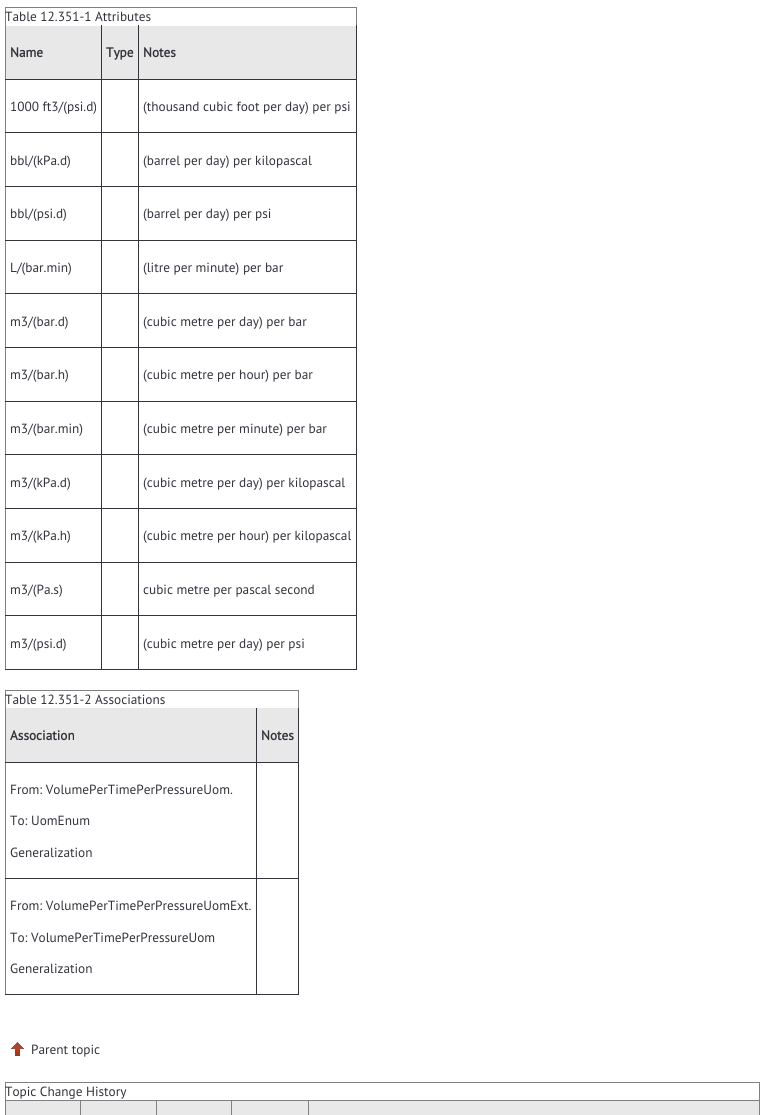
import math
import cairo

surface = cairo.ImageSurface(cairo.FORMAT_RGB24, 768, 1115)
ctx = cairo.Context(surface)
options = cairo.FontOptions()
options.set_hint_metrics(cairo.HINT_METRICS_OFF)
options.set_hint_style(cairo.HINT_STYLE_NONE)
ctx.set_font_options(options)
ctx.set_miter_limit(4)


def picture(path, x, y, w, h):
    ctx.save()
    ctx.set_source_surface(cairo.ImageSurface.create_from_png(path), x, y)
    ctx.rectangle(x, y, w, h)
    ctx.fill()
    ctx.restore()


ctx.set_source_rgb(1, 1, 1)
ctx.paint()
ctx.set_source_rgb(0.502, 0.502, 0.502)
ctx.rectangle(5, 7, 352, 1)
ctx.fill()
ctx.rectangle(356, 7, 1, 18)
ctx.fill()
ctx.rectangle(5, 7, 1, 663)
ctx.fill()
ctx.select_font_face("PT Sans")
ctx.set_font_size(13.3)
ctx.set_source_rgb(0.2, 0.2, 0.235)
ctx.move_to(5, 21)
ctx.show_text("Table 12.351-1 Attributes")
ctx.set_source_rgb(0.91, 0.91, 0.91)
ctx.rectangle(6, 26, 350, 53)
ctx.fill()
ctx.set_source_rgb(0.2, 0.2, 0.235)
ctx.rectangle(356, 25, 1, 645)
ctx.fill()
ctx.rectangle(138, 669, 219, 1)
ctx.fill()
ctx.rectangle(138, 615, 1, 55)
ctx.fill()
ctx.rectangle(138, 615, 219, 1)
ctx.fill()
ctx.rectangle(138, 562, 1, 54)
ctx.fill()
ctx.rectangle(138, 562, 219, 1)
ctx.fill()
ctx.rectangle(138, 508, 1, 55)
ctx.fill()
ctx.rectangle(138, 508, 219, 1)
ctx.fill()
ctx.rectangle(138, 454, 1, 55)
ctx.fill()
ctx.rectangle(138, 454, 219, 1)
ctx.fill()
ctx.rectangle(138, 401, 1, 54)
ctx.fill()
ctx.rectangle(138, 401, 219, 1)
ctx.fill()
ctx.rectangle(138, 347, 1, 55)
ctx.fill()
ctx.rectangle(138, 347, 219, 1)
ctx.fill()
ctx.rectangle(138, 293, 1, 55)
ctx.fill()
ctx.rectangle(138, 293, 219, 1)
ctx.fill()
ctx.rectangle(138, 240, 1, 54)
ctx.fill()
ctx.rectangle(138, 240, 219, 1)
ctx.fill()
ctx.rectangle(138, 186, 1, 55)
ctx.fill()
ctx.rectangle(138, 186, 219, 1)
ctx.fill()
ctx.rectangle(138, 132, 1, 55)
ctx.fill()
ctx.rectangle(138, 132, 219, 1)
ctx.fill()
ctx.rectangle(138, 79, 1, 54)
ctx.fill()
ctx.rectangle(138, 79, 219, 1)
ctx.fill()
ctx.rectangle(138, 25, 1, 55)
ctx.fill()
ctx.rectangle(101, 669, 38, 1)
ctx.fill()
ctx.rectangle(101, 615, 1, 55)
ctx.fill()
ctx.rectangle(101, 615, 38, 1)
ctx.fill()
ctx.rectangle(101, 562, 1, 54)
ctx.fill()
ctx.rectangle(101, 562, 38, 1)
ctx.fill()
ctx.rectangle(101, 508, 1, 55)
ctx.fill()
ctx.rectangle(101, 508, 38, 1)
ctx.fill()
ctx.rectangle(101, 454, 1, 55)
ctx.fill()
ctx.rectangle(101, 454, 38, 1)
ctx.fill()
ctx.rectangle(101, 401, 1, 54)
ctx.fill()
ctx.rectangle(101, 401, 38, 1)
ctx.fill()
ctx.rectangle(101, 347, 1, 55)
ctx.fill()
ctx.rectangle(101, 347, 38, 1)
ctx.fill()
ctx.rectangle(101, 293, 1, 55)
ctx.fill()
ctx.rectangle(101, 293, 38, 1)
ctx.fill()
ctx.rectangle(101, 240, 1, 54)
ctx.fill()
ctx.rectangle(101, 240, 38, 1)
ctx.fill()
ctx.rectangle(101, 186, 1, 55)
ctx.fill()
ctx.rectangle(101, 186, 38, 1)
ctx.fill()
ctx.rectangle(101, 132, 1, 55)
ctx.fill()
ctx.rectangle(101, 132, 38, 1)
ctx.fill()
ctx.rectangle(101, 79, 1, 54)
ctx.fill()
ctx.rectangle(101, 79, 38, 1)
ctx.fill()
ctx.rectangle(101, 25, 1, 55)
ctx.fill()
ctx.rectangle(5, 79, 97, 1)
ctx.fill()
ctx.select_font_face("PT Sans", cairo.FONT_SLANT_NORMAL, cairo.FONT_WEIGHT_BOLD)
ctx.move_to(10, 57)
ctx.show_text("Name")
ctx.move_to(106, 57)
ctx.show_text("Type")
ctx.move_to(143, 57)
ctx.show_text("Notes")
ctx.rectangle(5, 132, 97, 1)
ctx.fill()
ctx.select_font_face("PT Sans")
ctx.move_to(10, 111)
ctx.show_text("1000 ft3/(psi.d)")
ctx.move_to(143, 111)
ctx.show_text("(thousand cubic foot per day) per psi")
ctx.rectangle(5, 186, 97, 1)
ctx.fill()
ctx.move_to(10, 165)
ctx.show_text("bbl/(kPa.d)")
ctx.move_to(143, 165)
ctx.show_text("(barrel per day) per kilopascal")
ctx.rectangle(5, 240, 97, 1)
ctx.fill()
ctx.move_to(10, 218)
ctx.show_text("bbl/(psi.d)")
ctx.move_to(143, 218)
ctx.show_text("(barrel per day) per psi")
ctx.rectangle(5, 293, 97, 1)
ctx.fill()
ctx.move_to(10, 272)
ctx.show_text("L/(bar.min)")
ctx.move_to(143, 272)
ctx.show_text("(litre per minute) per bar")
ctx.rectangle(5, 347, 97, 1)
ctx.fill()
ctx.move_to(10, 326)
ctx.show_text("m3/(bar.d)")
ctx.move_to(143, 326)
ctx.show_text("(cubic metre per day) per bar")
ctx.rectangle(5, 401, 97, 1)
ctx.fill()
ctx.move_to(10, 379)
ctx.show_text("m3/(bar.h)")
ctx.move_to(143, 379)
ctx.show_text("(cubic metre per hour) per bar")
ctx.rectangle(5, 454, 97, 1)
ctx.fill()
ctx.move_to(10, 433)
ctx.show_text("m3/(bar.min)")
ctx.move_to(143, 433)
ctx.show_text("(cubic metre per minute) per bar")
ctx.rectangle(5, 508, 97, 1)
ctx.fill()
ctx.move_to(10, 487)
ctx.show_text("m3/(kPa.d)")
ctx.move_to(143, 487)
ctx.show_text("(cubic metre per day) per kilopascal")
ctx.rectangle(5, 562, 97, 1)
ctx.fill()
ctx.move_to(10, 540)
ctx.show_text("m3/(kPa.h)")
ctx.move_to(143, 540)
ctx.show_text("(cubic metre per hour) per kilopascal")
ctx.rectangle(5, 615, 97, 1)
ctx.fill()
ctx.move_to(10, 594)
ctx.show_text("m3/(Pa.s)")
ctx.move_to(143, 594)
ctx.show_text("cubic metre per pascal second")
ctx.rectangle(5, 669, 97, 1)
ctx.fill()
ctx.move_to(10, 648)
ctx.show_text("m3/(psi.d)")
ctx.move_to(143, 648)
ctx.show_text("(cubic metre per day) per psi")
ctx.set_source_rgb(0.502, 0.502, 0.502)
ctx.rectangle(5, 690, 294, 1)
ctx.fill()
ctx.rectangle(298, 690, 1, 18)
ctx.fill()
ctx.rectangle(5, 690, 1, 305)
ctx.fill()
ctx.set_source_rgb(0.2, 0.2, 0.235)
ctx.move_to(5, 704)
ctx.show_text("Table 12.351-2 Associations")
ctx.set_source_rgb(0.91, 0.91, 0.91)
ctx.rectangle(6, 708, 292, 54)
ctx.fill()
ctx.set_source_rgb(0.2, 0.2, 0.235)
ctx.rectangle(298, 708, 1, 287)
ctx.fill()
ctx.rectangle(256, 994, 43, 1)
ctx.fill()
ctx.rectangle(256, 878, 1, 117)
ctx.fill()
ctx.rectangle(256, 878, 43, 1)
ctx.fill()
ctx.rectangle(256, 762, 1, 117)
ctx.fill()
ctx.rectangle(256, 762, 43, 1)
ctx.fill()
ctx.rectangle(256, 708, 1, 55)
ctx.fill()
ctx.rectangle(5, 762, 252, 1)
ctx.fill()
ctx.select_font_face("PT Sans", cairo.FONT_SLANT_NORMAL, cairo.FONT_WEIGHT_BOLD)
ctx.move_to(10, 740)
ctx.show_text("Association")
ctx.move_to(261, 740)
ctx.show_text("Notes")
ctx.rectangle(5, 878, 252, 1)
ctx.fill()
ctx.select_font_face("PT Sans")
ctx.move_to(10, 794)
ctx.show_text("From: VolumePerTimePerPressureUom.")
ctx.move_to(10, 825)
ctx.show_text("To: UomEnum")
ctx.move_to(10, 857)
ctx.show_text("Generalization")
ctx.rectangle(5, 994, 252, 1)
ctx.fill()
ctx.move_to(10, 910)
ctx.show_text("From: VolumePerTimePerPressureUomExt.")
ctx.move_to(10, 942)
ctx.show_text("To: VolumePerTimePerPressureUom")
ctx.move_to(10, 973)
ctx.show_text("Generalization")
picture("img1.png", 11, 1042, 13, 14)
ctx.move_to(31, 1054)
ctx.show_text("Parent topic")
ctx.set_source_rgb(0.502, 0.502, 0.502)
ctx.rectangle(5, 1082, 755, 1)
ctx.fill()
ctx.rectangle(759, 1082, 1, 33)
ctx.fill()
ctx.rectangle(5, 1082, 1, 33)
ctx.fill()
ctx.set_source_rgb(0.2, 0.2, 0.235)
ctx.move_to(5, 1096)
ctx.show_text("Topic Change History")
ctx.set_source_rgb(0.91, 0.91, 0.91)
ctx.rectangle(6, 1101, 753, 14)
ctx.fill()
ctx.set_source_rgb(0.502, 0.502, 0.502)
ctx.rectangle(308, 1100, 452, 1)
ctx.fill()
ctx.rectangle(308, 1100, 1, 15)
ctx.fill()
ctx.rectangle(231, 1100, 78, 1)
ctx.fill()
ctx.rectangle(231, 1100, 1, 15)
ctx.fill()
ctx.rectangle(156, 1100, 76, 1)
ctx.fill()
ctx.rectangle(156, 1100, 1, 15)
ctx.fill()
ctx.rectangle(80, 1100, 77, 1)
ctx.fill()
ctx.rectangle(80, 1100, 1, 15)
ctx.fill()
ctx.rectangle(5, 1100, 76, 1)
ctx.fill()
surface.write_to_png("page.png")
